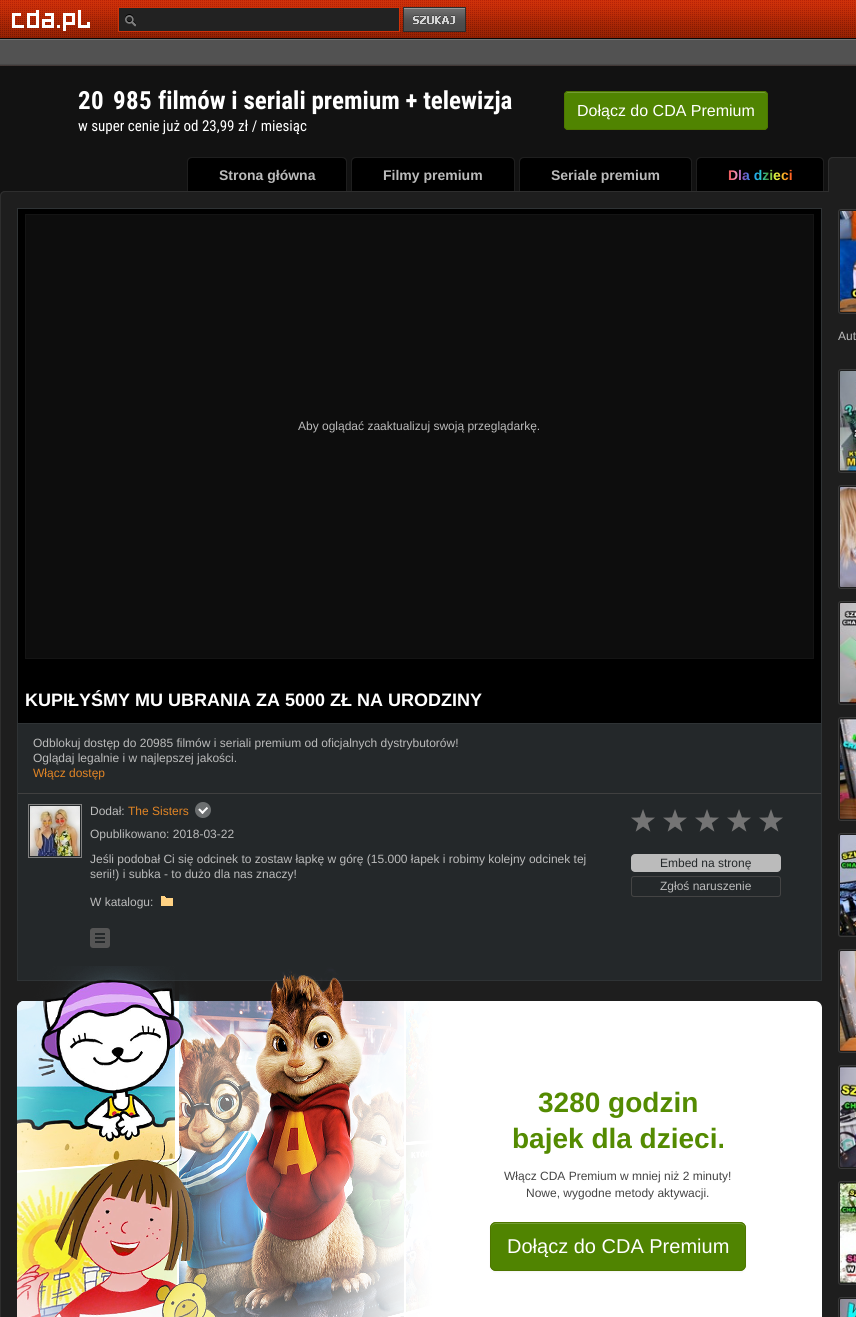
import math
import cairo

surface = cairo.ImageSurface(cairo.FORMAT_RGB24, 856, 1317)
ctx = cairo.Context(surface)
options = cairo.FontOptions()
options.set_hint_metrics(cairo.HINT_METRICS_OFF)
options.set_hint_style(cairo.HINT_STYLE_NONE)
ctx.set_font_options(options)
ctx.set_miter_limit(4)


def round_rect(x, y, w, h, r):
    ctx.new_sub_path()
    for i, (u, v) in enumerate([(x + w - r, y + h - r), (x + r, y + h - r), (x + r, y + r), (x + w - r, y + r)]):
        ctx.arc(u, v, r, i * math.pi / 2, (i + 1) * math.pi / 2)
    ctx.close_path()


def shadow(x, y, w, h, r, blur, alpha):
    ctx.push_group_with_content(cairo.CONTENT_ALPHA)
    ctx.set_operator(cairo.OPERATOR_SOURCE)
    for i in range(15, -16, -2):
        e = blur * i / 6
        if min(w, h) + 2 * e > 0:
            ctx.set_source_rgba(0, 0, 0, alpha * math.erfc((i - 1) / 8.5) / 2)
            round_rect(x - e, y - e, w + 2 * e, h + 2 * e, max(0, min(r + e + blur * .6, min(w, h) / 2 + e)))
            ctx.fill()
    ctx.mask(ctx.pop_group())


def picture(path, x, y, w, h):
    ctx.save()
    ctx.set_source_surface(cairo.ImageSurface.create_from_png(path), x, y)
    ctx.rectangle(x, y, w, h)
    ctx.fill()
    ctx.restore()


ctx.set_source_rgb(0.071, 0.071, 0.071)
ctx.paint()
picture("img1.png", 0, 0, 856, 66)
picture("img2.png", 12, 10, 78, 21)
ctx.set_source_rgb(0.133, 0.133, 0.133)
ctx.rectangle(118.5, 7.5, 281, 24)
ctx.fill_preserve()
ctx.set_source_rgb(0.812, 0.196, 0.039)
ctx.set_line_width(1)
ctx.stroke()
picture("img3.png", 403, 7, 63, 25)
picture("img4.png", 125, 14, 11, 13)
ctx.select_font_face("Roboto Condensed", cairo.FONT_SLANT_NORMAL, cairo.FONT_WEIGHT_BOLD)
ctx.set_font_size(25)
ctx.set_source_rgb(1, 1, 1)
ctx.move_to(78, 109)
ctx.show_text("2")
ctx.move_to(91, 109)
ctx.show_text("0")
ctx.move_to(113, 109)
ctx.show_text("9")
ctx.move_to(126, 109)
ctx.show_text("8")
ctx.move_to(139, 109)
ctx.show_text("5")
ctx.move_to(158, 109)
ctx.show_text("filmów i seriali premium + telewizja")
ctx.select_font_face("Roboto Condensed")
ctx.set_font_size(15)
ctx.move_to(78, 131)
ctx.show_text("w super cenie już od 23,99 zł / miesiąc")
ctx.set_source_rgb(0.314, 0.518, 0.004)
round_rect(564, 91, 204, 39, 4)
ctx.fill()
ctx.set_source_rgb(0.451, 0.616, 0.204)
ctx.new_path()
ctx.move_to(568, 93)
ctx.line_to(764, 93)
ctx.curve_to(766, 93, 767, 94, 767, 96)
ctx.curve_to(767, 94, 766, 92, 764, 92)
ctx.line_to(568, 92)
ctx.curve_to(566, 92, 565, 94, 565, 96)
ctx.curve_to(565, 94, 566, 93, 568, 93)
ctx.close_path()
ctx.fill()
round_rect(564.5, 91.5, 203, 38, 3.5)
ctx.set_source_rgb(0.306, 0.463, 0)
ctx.stroke()
ctx.select_font_face("Liberation Sans")
ctx.set_font_size(16)
ctx.set_source_rgb(1, 1, 1)
ctx.move_to(577, 116)
ctx.show_text("Dołącz do CDA Premium")
picture("img5.png", 187, 157, 7, 7)
picture("img6.png", 340, 157, 7, 7)
ctx.set_source_rgb(0.118, 0.118, 0.118)
ctx.rectangle(194, 157, 146, 1)
ctx.fill()
ctx.set_source_rgb(0, 0, 0)
ctx.rectangle(188, 164, 6, 27)
ctx.fill()
ctx.set_source_rgb(0.118, 0.118, 0.118)
ctx.rectangle(187, 164, 1, 27)
ctx.fill()
ctx.set_source_rgb(0, 0, 0)
ctx.rectangle(194, 158, 146, 33)
ctx.fill()
ctx.select_font_face("Liberation Sans", cairo.FONT_SLANT_NORMAL, cairo.FONT_WEIGHT_BOLD)
ctx.set_font_size(14)
ctx.set_source_rgb(0.733, 0.733, 0.733)
ctx.move_to(219, 180)
ctx.show_text("Strona główna")
ctx.set_source_rgb(0, 0, 0)
ctx.rectangle(340, 164, 6, 27)
ctx.fill()
ctx.set_source_rgb(0.118, 0.118, 0.118)
ctx.rectangle(346, 164, 1, 27)
ctx.fill()
picture("img5.png", 351, 157, 7, 7)
picture("img6.png", 508, 157, 7, 7)
ctx.rectangle(358, 157, 150, 1)
ctx.fill()
ctx.set_source_rgb(0, 0, 0)
ctx.rectangle(352, 164, 6, 27)
ctx.fill()
ctx.set_source_rgb(0.118, 0.118, 0.118)
ctx.rectangle(351, 164, 1, 27)
ctx.fill()
ctx.set_source_rgb(0, 0, 0)
ctx.rectangle(358, 158, 150, 33)
ctx.fill()
ctx.set_source_rgb(0.733, 0.733, 0.733)
ctx.move_to(383, 180)
ctx.show_text("Filmy premium")
ctx.set_source_rgb(0, 0, 0)
ctx.rectangle(508, 164, 6, 27)
ctx.fill()
ctx.set_source_rgb(0.118, 0.118, 0.118)
ctx.rectangle(514, 164, 1, 27)
ctx.fill()
picture("img5.png", 519, 157, 7, 7)
picture("img6.png", 685, 157, 7, 7)
ctx.rectangle(526, 157, 159, 1)
ctx.fill()
ctx.set_source_rgb(0, 0, 0)
ctx.rectangle(520, 164, 6, 27)
ctx.fill()
ctx.set_source_rgb(0.118, 0.118, 0.118)
ctx.rectangle(519, 164, 1, 27)
ctx.fill()
ctx.set_source_rgb(0, 0, 0)
ctx.rectangle(526, 158, 159, 33)
ctx.fill()
ctx.set_source_rgb(0.733, 0.733, 0.733)
ctx.move_to(551, 180)
ctx.show_text("Seriale premium")
ctx.set_source_rgb(0, 0, 0)
ctx.rectangle(685, 164, 6, 27)
ctx.fill()
ctx.set_source_rgb(0.118, 0.118, 0.118)
ctx.rectangle(691, 164, 1, 27)
ctx.fill()
picture("img5.png", 696, 157, 7, 7)
picture("img6.png", 817, 157, 7, 7)
ctx.rectangle(703, 157, 114, 1)
ctx.fill()
ctx.set_source_rgb(0, 0, 0)
ctx.rectangle(697, 164, 6, 27)
ctx.fill()
ctx.set_source_rgb(0.118, 0.118, 0.118)
ctx.rectangle(696, 164, 1, 27)
ctx.fill()
ctx.set_source_rgb(0, 0, 0)
ctx.rectangle(703, 158, 114, 33)
ctx.fill()
gradient = cairo.LinearGradient(728, 175, 792, 175)
gradient.add_color_stop_rgba(0, 0.937, 0.325, 0.314, 1)
gradient.add_color_stop_rgba(0.12, 0.957, 0.561, 0.694, 1)
gradient.add_color_stop_rgba(0.25, 0.494, 0.341, 0.761, 1)
gradient.add_color_stop_rgba(0.38, 0.129, 0.588, 0.953, 1)
gradient.add_color_stop_rgba(0.5, 0.149, 0.776, 0.855, 1)
gradient.add_color_stop_rgba(0.62, 0.263, 0.627, 0.278, 1)
gradient.add_color_stop_rgba(0.75, 0.933, 1, 0.255, 1)
gradient.add_color_stop_rgba(0.88, 0.976, 0.659, 0.145, 1)
gradient.add_color_stop_rgba(1, 1, 0.341, 0.133, 1)
ctx.set_source(gradient)
ctx.move_to(728, 180)
ctx.show_text("Dla dzieci")
ctx.set_source_rgb(0, 0, 0)
ctx.rectangle(817, 164, 6, 27)
ctx.fill()
ctx.set_source_rgb(0.118, 0.118, 0.118)
ctx.rectangle(823, 164, 1, 27)
ctx.fill()
ctx.set_source_rgb(0.18, 0.18, 0.18)
ctx.rectangle(835, 157, 21, 1)
ctx.fill()
ctx.set_source_rgb(0.118, 0.118, 0.118)
ctx.rectangle(829, 164, 6, 28)
ctx.fill()
ctx.set_source_rgb(0.18, 0.18, 0.18)
ctx.rectangle(828, 164, 1, 28)
ctx.fill()
ctx.set_source_rgb(0.118, 0.118, 0.118)
ctx.rectangle(835, 158, 21, 34)
ctx.fill()
picture("img7.png", 828, 157, 7, 7)
picture("img7.png", 0, 191, 7, 7)
ctx.rectangle(7, 192, 849, 6)
ctx.fill()
ctx.set_source_rgb(0.18, 0.18, 0.18)
ctx.rectangle(7, 191, 821, 1)
ctx.fill()
ctx.set_source_rgb(0.118, 0.118, 0.118)
ctx.rectangle(1, 198, 855, 1119)
ctx.fill()
ctx.set_source_rgb(0.18, 0.18, 0.18)
ctx.rectangle(0, 198, 1, 1119)
ctx.fill()
round_rect(838.5, 209.5, 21, 104, 2.5)
ctx.set_source_rgb(0.224, 0.224, 0.224)
ctx.stroke()
picture("img8.png", 840, 211, 16, 101)
ctx.select_font_face("Liberation Sans")
ctx.set_font_size(12)
ctx.set_source_rgb(0.733, 0.733, 0.733)
ctx.move_to(838, 340)
ctx.show_text("Aut")
round_rect(838.5, 369.5, 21, 103, 2.5)
ctx.set_source_rgb(0.224, 0.224, 0.224)
ctx.stroke()
picture("img9.png", 840, 371, 16, 100)
round_rect(838.5, 485.5, 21, 103, 2.5)
ctx.stroke()
picture("img10.png", 840, 487, 16, 100)
round_rect(838.5, 601.5, 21, 103, 2.5)
ctx.stroke()
picture("img11.png", 840, 603, 16, 100)
round_rect(838.5, 717.5, 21, 103, 2.5)
ctx.stroke()
picture("img12.png", 840, 719, 16, 100)
round_rect(838.5, 833.5, 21, 103, 2.5)
ctx.stroke()
picture("img13.png", 840, 835, 16, 100)
round_rect(838.5, 949.5, 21, 103, 2.5)
ctx.stroke()
picture("img14.png", 840, 951, 16, 100)
round_rect(838.5, 1065.5, 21, 103, 2.5)
ctx.stroke()
picture("img15.png", 840, 1067, 16, 100)
round_rect(838.5, 1181.5, 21, 103, 2.5)
ctx.stroke()
picture("img16.png", 840, 1183, 16, 100)
round_rect(838.5, 1297.5, 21, 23, 2.5)
ctx.stroke()
picture("img17.png", 840, 1299, 16, 18)
ctx.set_source_rgb(0, 0, 0)
ctx.rectangle(18, 209, 803, 514)
ctx.fill()
ctx.set_source_rgb(0.184, 0.2, 0.208)
ctx.rectangle(17, 208, 805, 1)
ctx.fill()
ctx.rectangle(821, 208, 1, 516)
ctx.fill()
ctx.rectangle(17, 208, 1, 516)
ctx.fill()
ctx.set_source_rgb(0.051, 0.051, 0.051)
ctx.rectangle(25.5, 214.5, 788, 444)
ctx.fill_preserve()
ctx.set_source_rgb(0.082, 0.082, 0.082)
ctx.stroke()
ctx.set_source_rgb(0.733, 0.733, 0.733)
ctx.move_to(298, 430)
ctx.show_text("Aby oglądać zaaktualizuj swoją przeglądarkę.")
ctx.select_font_face("Liberation Sans", cairo.FONT_SLANT_NORMAL, cairo.FONT_WEIGHT_BOLD)
ctx.set_font_size(18)
ctx.set_source_rgb(1, 1, 1)
ctx.move_to(25, 706)
ctx.show_text("KUPIŁYŚMY MU UBRANIA ZA 5000 ZŁ NA URODZINY")
ctx.set_source_rgb(0.141, 0.157, 0.165)
ctx.rectangle(17.5, 723.5, 804, 257)
ctx.fill_preserve()
ctx.set_source_rgb(0.184, 0.2, 0.208)
ctx.stroke()
ctx.set_source_rgb(0.251, 0.251, 0.251)
ctx.rectangle(18, 793, 803, 1)
ctx.fill()
ctx.select_font_face("Liberation Sans")
ctx.set_font_size(12)
ctx.set_source_rgb(0.733, 0.733, 0.733)
ctx.move_to(33, 747)
ctx.show_text("Odblokuj dostęp do 20985 filmów i seriali premium od oficjalnych dystrybutorów!")
ctx.move_to(33, 762)
ctx.show_text("Oglądaj legalnie i w najlepszej jakości.")
ctx.set_source_rgb(0.886, 0.522, 0.145)
ctx.move_to(33, 777)
ctx.show_text("Włącz dostęp")
ctx.rectangle(28.5, 804.5, 53, 53)
ctx.set_source_rgb(0.502, 0.502, 0.502)
ctx.stroke()
picture("img18.png", 30, 806, 50, 50)
ctx.set_source_rgb(0.733, 0.733, 0.733)
ctx.move_to(90, 815)
ctx.show_text("Dodał:")
ctx.set_source_rgb(0.886, 0.522, 0.145)
ctx.move_to(128, 815)
ctx.show_text("The Sisters")
picture("img19.png", 195, 802, 16, 16)
ctx.set_source_rgb(0.733, 0.733, 0.733)
ctx.move_to(90, 838)
ctx.show_text("Opublikowano: 2018-03-22")
ctx.move_to(90, 863)
ctx.show_text("Jeśli podobał Ci się odcinek to zostaw łapkę w górę (15.000 łapek i robimy kolejny odcinek tej")
ctx.move_to(90, 878)
ctx.show_text("serii!) i subka - to dużo dla nas znaczy!")
ctx.move_to(90, 906)
ctx.show_text("W katalogu:")
picture("img20.png", 161, 896, 12, 10)
ctx.set_source_rgb(0.333, 0.333, 0.333)
round_rect(90, 928, 20, 20, 3)
ctx.fill()
ctx.set_source_rgb(0.141, 0.157, 0.165)
ctx.rectangle(95, 933, 10, 2)
ctx.fill()
ctx.rectangle(95, 937, 10, 2)
ctx.fill()
ctx.rectangle(95, 941, 10, 2)
ctx.fill()
picture("img21.png", 631, 809, 152, 23)
ctx.set_source_rgb(0.733, 0.733, 0.733)
round_rect(631, 854, 150, 18, 4)
ctx.fill()
ctx.set_source_rgb(0.141, 0.157, 0.165)
ctx.move_to(660, 867)
ctx.show_text("Embed na stronę")
round_rect(631.5, 876.5, 149, 20, 2.5)
ctx.set_source_rgb(0.267, 0.267, 0.267)
ctx.stroke()
ctx.set_source_rgb(0.733, 0.733, 0.733)
ctx.move_to(660, 890)
ctx.show_text("Zgłoś naruszenie")
picture("img22.png", 17, 966, 805, 351)
ctx.select_font_face("Liberation Sans", cairo.FONT_SLANT_NORMAL, cairo.FONT_WEIGHT_BOLD)
ctx.set_font_size(28)
ctx.set_source_rgb(0.329, 0.545, 0.004)
ctx.move_to(538, 1112)
ctx.show_text("3280 godzin")
ctx.move_to(512, 1148)
ctx.show_text("bajek dla dzieci.")
ctx.select_font_face("Liberation Sans")
ctx.set_font_size(12)
ctx.set_source_rgb(0.267, 0.267, 0.267)
ctx.move_to(504, 1180)
ctx.show_text("Włącz CDA Premium w mniej niż 2 minuty!")
ctx.move_to(526, 1197)
ctx.show_text("Nowe, wygodne metody aktywacji.")
ctx.set_source_rgb(0, 0, 0)
shadow(490, 1223, 256, 49, 6, 1, 0.05)
ctx.set_source_rgb(0.314, 0.518, 0.004)
round_rect(490, 1222, 256, 49, 6)
ctx.fill()
ctx.set_source_rgb(0.451, 0.616, 0.204)
ctx.new_path()
ctx.move_to(496, 1224)
ctx.line_to(740, 1224)
ctx.curve_to(743, 1224, 745, 1226, 745, 1229)
ctx.line_to(745, 1228)
ctx.curve_to(745, 1225, 743, 1223, 740, 1223)
ctx.line_to(496, 1223)
ctx.curve_to(493, 1223, 491, 1225, 491, 1228)
ctx.line_to(491, 1229)
ctx.curve_to(491, 1226, 493, 1224, 496, 1224)
ctx.close_path()
ctx.fill()
round_rect(490.5, 1222.5, 255, 48, 5.5)
ctx.set_source_rgb(0.306, 0.463, 0)
ctx.stroke()
ctx.set_font_size(20)
ctx.set_source_rgb(1, 1, 1)
ctx.move_to(507, 1253)
ctx.show_text("Dołącz do CDA Premium")
surface.write_to_png("page.png")
